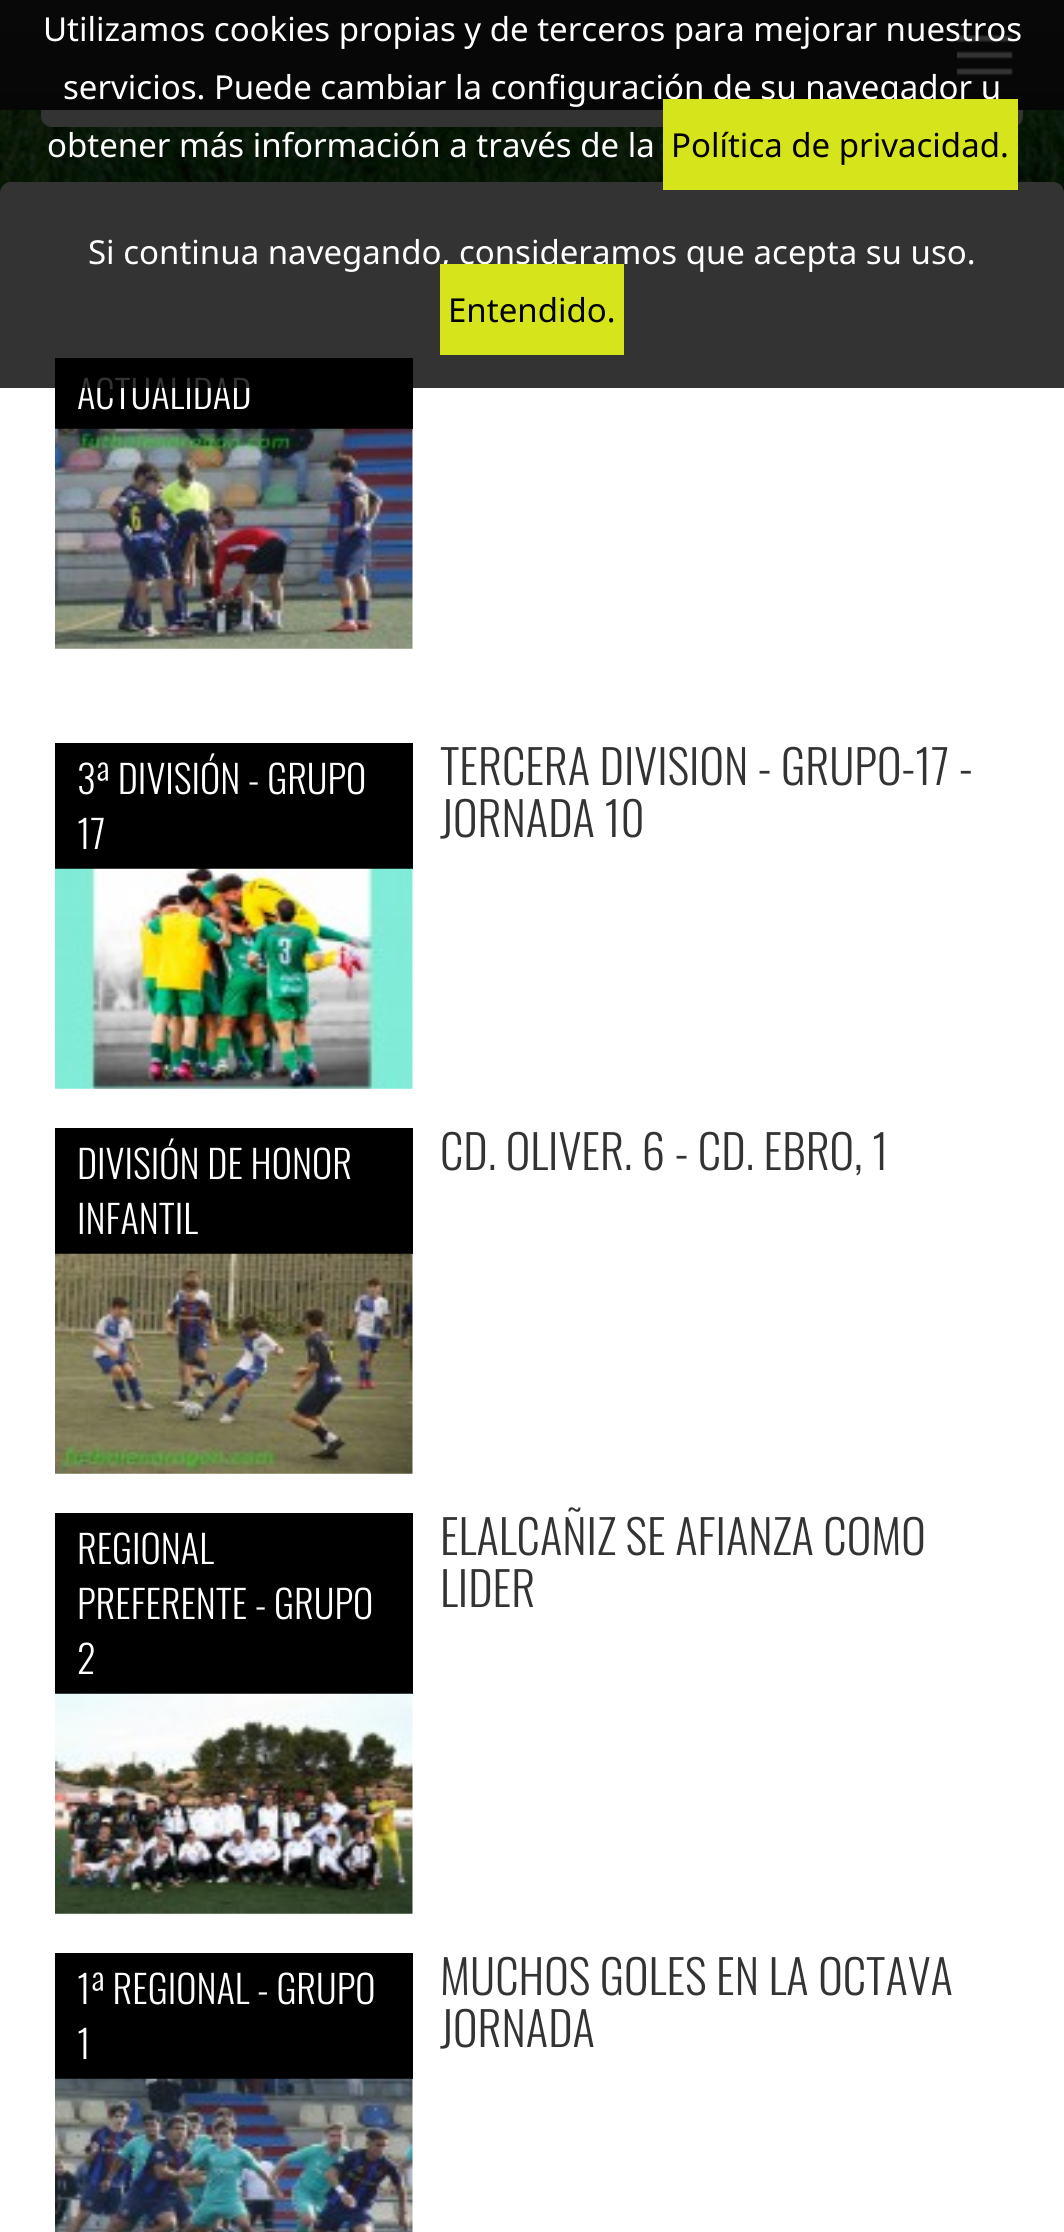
import math
import cairo

surface = cairo.ImageSurface(cairo.FORMAT_RGB24, 1064, 2232)
ctx = cairo.Context(surface)
options = cairo.FontOptions()
options.set_hint_metrics(cairo.HINT_METRICS_OFF)
options.set_hint_style(cairo.HINT_STYLE_NONE)
ctx.set_font_options(options)
ctx.set_miter_limit(4)


def round_rect(x, y, w, h, r):
    ctx.new_sub_path()
    for i, (u, v) in enumerate([(x + w - r, y + h - r), (x + r, y + h - r), (x + r, y + r), (x + w - r, y + r)]):
        ctx.arc(u, v, r, i * math.pi / 2, (i + 1) * math.pi / 2)
    ctx.close_path()


def picture(path, x, y, w, h):
    ctx.save()
    ctx.set_source_surface(cairo.ImageSurface.create_from_png(path), x, y)
    ctx.rectangle(x, y, w, h)
    ctx.fill()
    ctx.restore()


ctx.set_source_rgb(1, 1, 1)
ctx.paint()
picture("img1.png", 0, 110, 1064, 83)
ctx.set_source_rgb(1, 1, 1)
round_rect(41, -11, 982, 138, 11)
ctx.fill()
gradient = cairo.LinearGradient(532, 0, 532, 110)
gradient.add_color_stop_rgba(0, 0.157, 0.157, 0.157, 1)
gradient.add_color_stop_rgba(1, 0.122, 0.122, 0.122, 1)
ctx.set_source(gradient)
ctx.rectangle(0, 0, 1064, 110)
ctx.fill()
picture("img2.png", 957, 35, 56, 41)
ctx.set_source_rgb(1, 1, 1)
round_rect(0, 182, 1064, 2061, 11)
ctx.fill()
ctx.set_source_rgb(0, 0, 0)
ctx.rectangle(55, 358, 358, 71)
ctx.fill()
ctx.select_font_face("Oswald Light")
ctx.set_font_size(38.5)
ctx.set_source_rgb(1, 1, 1)
ctx.move_to(77, 409)
ctx.show_text("ACTUALIDAD")
ctx.set_source_rgba(0, 0, 0, 0.8)
ctx.rectangle(0, 0, 1064, 388)
ctx.fill()
ctx.select_font_face("Noto Sans")
ctx.set_font_size(33)
ctx.set_source_rgb(1, 1, 1)
ctx.move_to(43, 41)
ctx.show_text("Utilizamos cookies propias y de terceros para mejorar nuestros")
ctx.move_to(63, 99)
ctx.show_text("servicios. Puede cambiar la configuración de su navegador u")
ctx.move_to(47, 157)
ctx.show_text("obtener más información a través de la")
ctx.set_source_rgb(0.839, 0.898, 0.106)
ctx.rectangle(663, 99, 355, 91)
ctx.fill()
ctx.set_source_rgb(0, 0, 0)
ctx.move_to(671, 157)
ctx.show_text("Política de privacidad.")
ctx.set_source_rgb(1, 1, 1)
ctx.move_to(88, 264)
ctx.show_text("Si continua navegando, consideramos que acepta su uso.")
ctx.set_source_rgb(0.839, 0.898, 0.106)
ctx.rectangle(440, 264, 184, 91)
ctx.fill()
ctx.set_source_rgb(0, 0, 0)
ctx.move_to(448, 322)
ctx.show_text("Entendido.")
picture("img3.png", 55, 428, 358, 221)
ctx.rectangle(55, 743, 358, 126)
ctx.fill()
ctx.select_font_face("Oswald Light")
ctx.set_font_size(38.5)
ctx.set_source_rgb(1, 1, 1)
ctx.move_to(77, 794)
ctx.show_text("3ª DIVISIÓN - GRUPO")
ctx.move_to(77, 849)
ctx.show_text("17")
picture("img4.png", 55, 868, 358, 221)
ctx.set_font_size(46.75)
ctx.set_source_rgb(0.2, 0.2, 0.2)
ctx.move_to(440, 785)
ctx.show_text("TERCERA DIVISION - GRUPO-17 -")
ctx.move_to(440, 837)
ctx.show_text("JORNADA 10")
ctx.set_source_rgb(0, 0, 0)
ctx.rectangle(55, 1128, 358, 126)
ctx.fill()
ctx.set_font_size(38.5)
ctx.set_source_rgb(1, 1, 1)
ctx.move_to(77, 1179)
ctx.show_text("DIVISIÓN DE HONOR")
ctx.move_to(77, 1234)
ctx.show_text("INFANTIL")
picture("img5.png", 55, 1253, 358, 221)
ctx.set_font_size(46.75)
ctx.set_source_rgb(0.2, 0.2, 0.2)
ctx.move_to(440, 1170)
ctx.show_text("CD. OLIVER. 6 - CD. EBRO, 1")
ctx.set_source_rgb(0, 0, 0)
ctx.rectangle(55, 1513, 358, 181)
ctx.fill()
ctx.set_font_size(38.5)
ctx.set_source_rgb(1, 1, 1)
ctx.move_to(77, 1564)
ctx.show_text("REGIONAL")
ctx.move_to(77, 1619)
ctx.show_text("PREFERENTE - GRUPO")
ctx.move_to(77, 1674)
ctx.show_text("2")
picture("img6.png", 55, 1693, 358, 221)
ctx.set_font_size(46.75)
ctx.set_source_rgb(0.2, 0.2, 0.2)
ctx.move_to(440, 1555)
ctx.show_text("ELALCAÑIZ SE AFIANZA COMO")
ctx.move_to(440, 1607)
ctx.show_text("LIDER")
ctx.set_source_rgb(0, 0, 0)
ctx.rectangle(55, 1953, 358, 126)
ctx.fill()
ctx.set_font_size(38.5)
ctx.set_source_rgb(1, 1, 1)
ctx.move_to(77, 2004)
ctx.show_text("1ª REGIONAL - GRUPO")
ctx.move_to(77, 2059)
ctx.show_text("1")
picture("img7.png", 55, 2078, 358, 154)
ctx.set_font_size(46.75)
ctx.set_source_rgb(0.2, 0.2, 0.2)
ctx.move_to(440, 1995)
ctx.show_text("MUCHOS GOLES EN LA OCTAVA")
ctx.move_to(440, 2047)
ctx.show_text("JORNADA")
surface.write_to_png("page.png")
